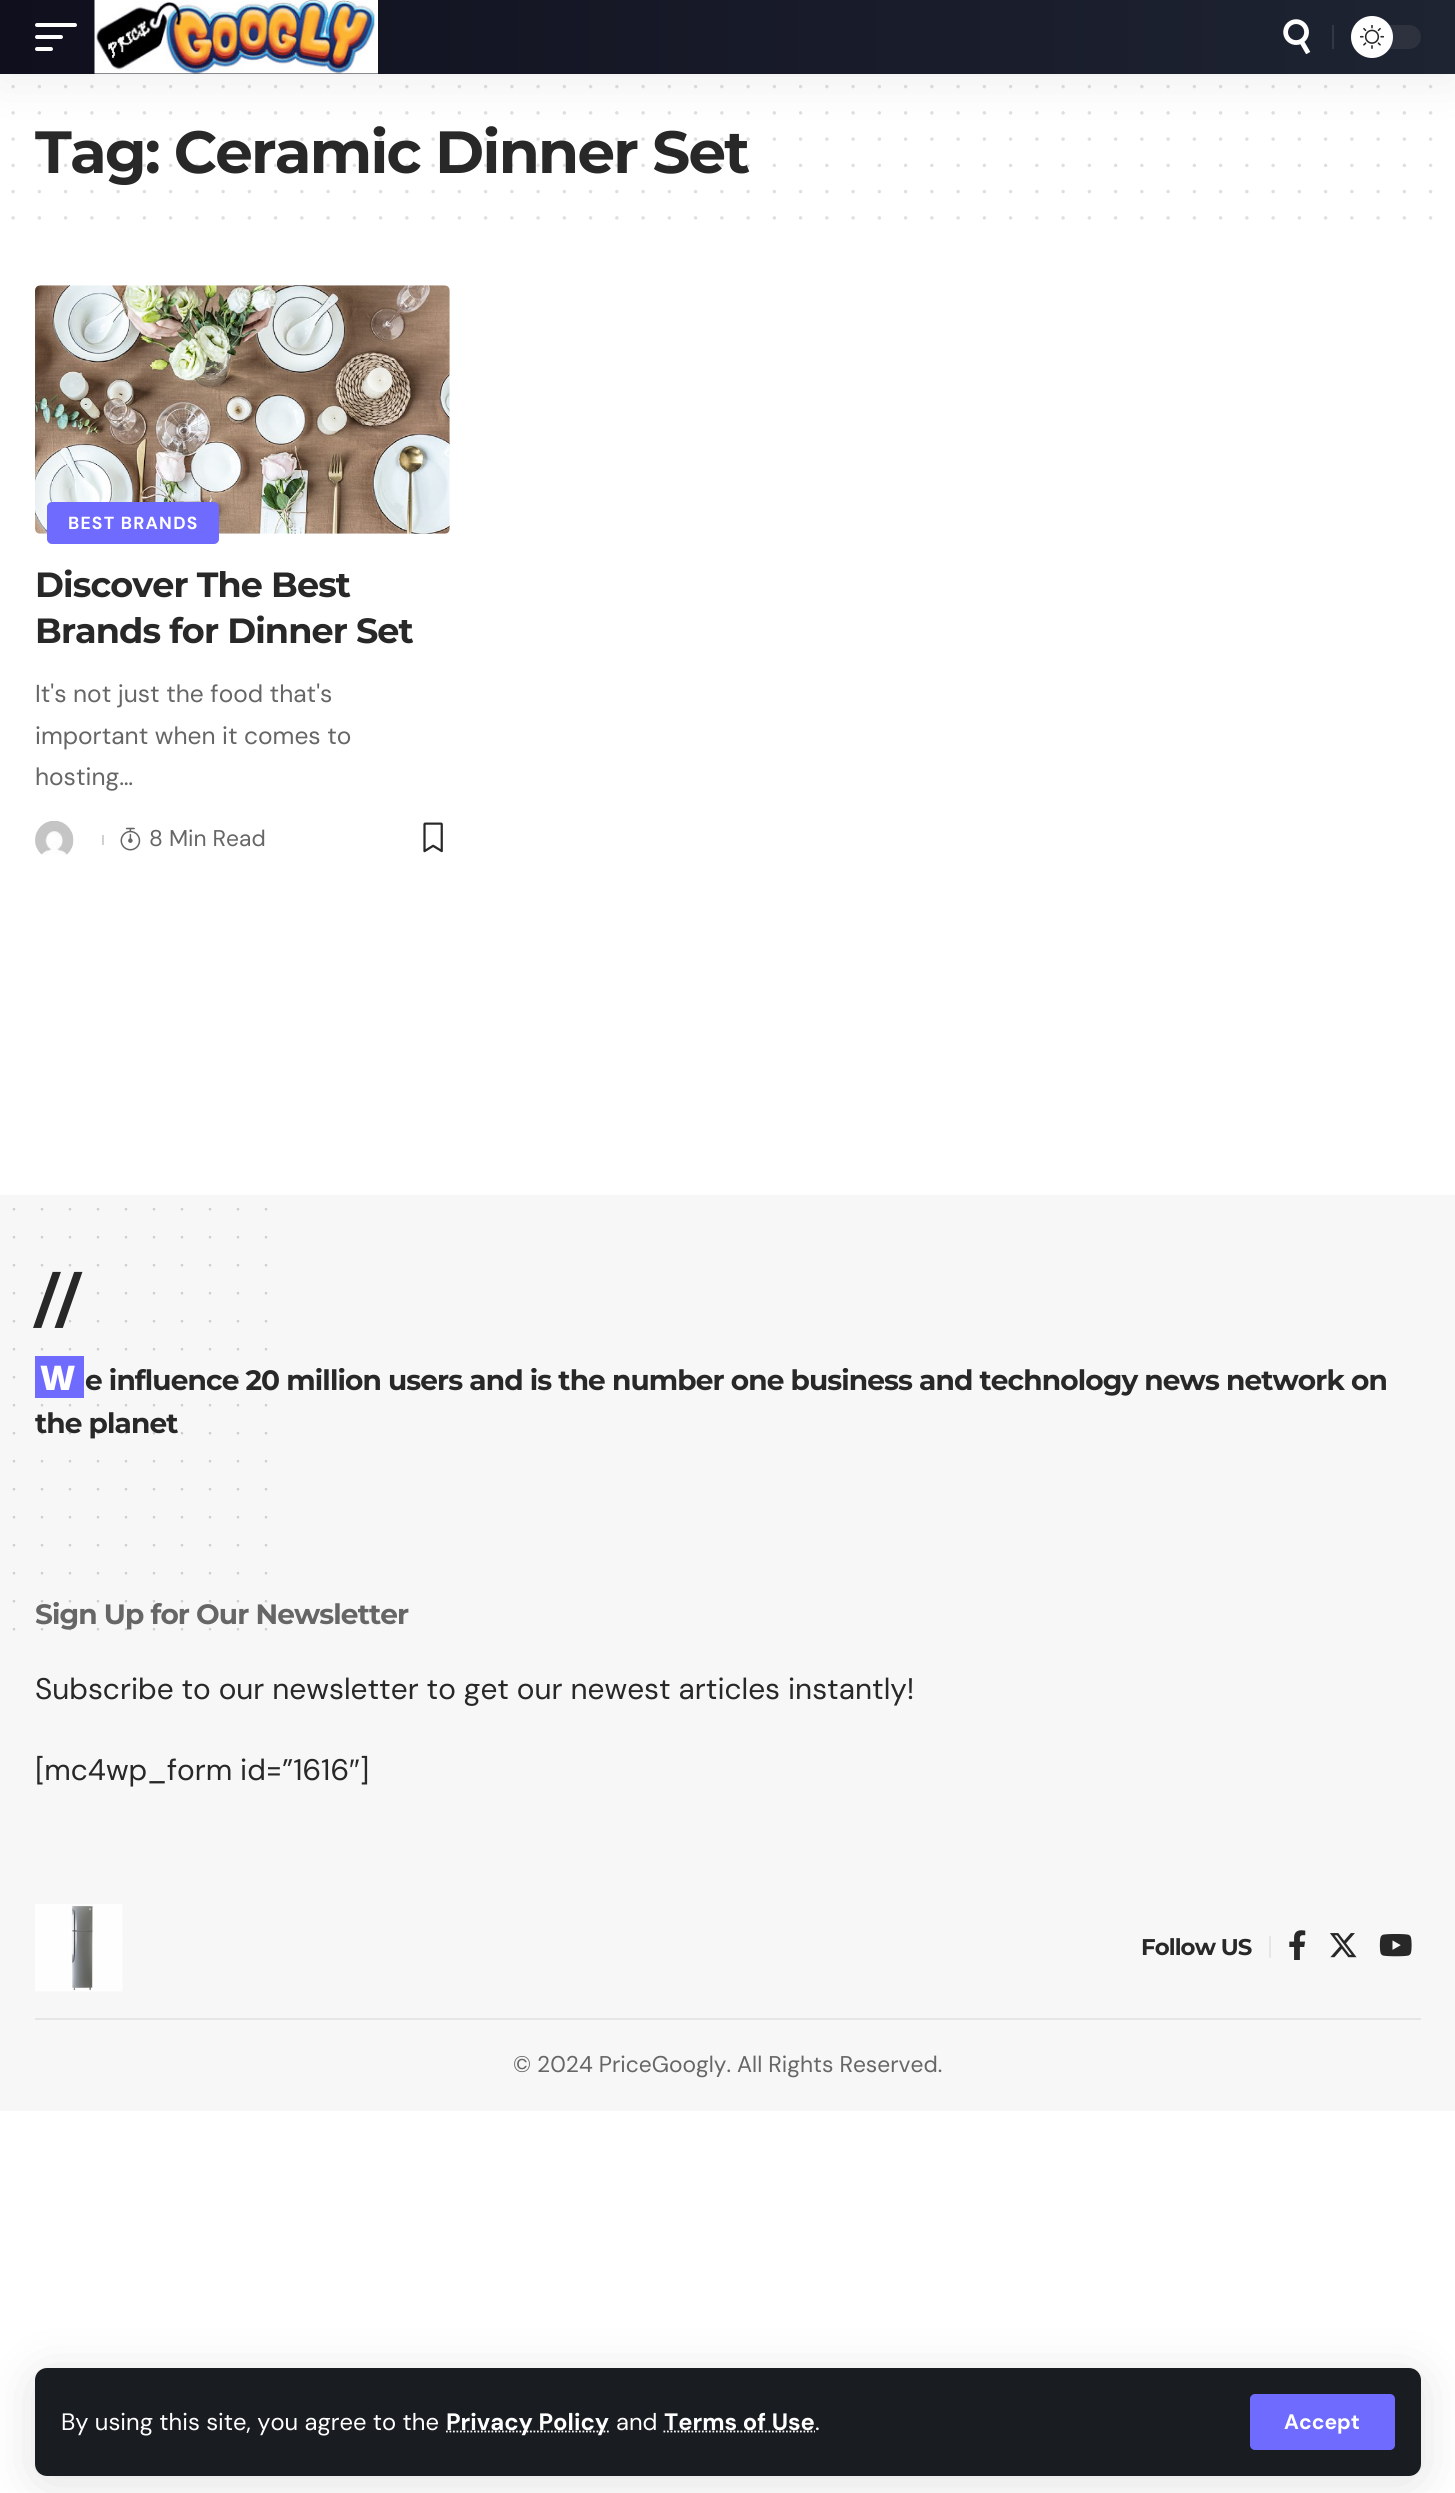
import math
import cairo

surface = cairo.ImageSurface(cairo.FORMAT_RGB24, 1455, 2493)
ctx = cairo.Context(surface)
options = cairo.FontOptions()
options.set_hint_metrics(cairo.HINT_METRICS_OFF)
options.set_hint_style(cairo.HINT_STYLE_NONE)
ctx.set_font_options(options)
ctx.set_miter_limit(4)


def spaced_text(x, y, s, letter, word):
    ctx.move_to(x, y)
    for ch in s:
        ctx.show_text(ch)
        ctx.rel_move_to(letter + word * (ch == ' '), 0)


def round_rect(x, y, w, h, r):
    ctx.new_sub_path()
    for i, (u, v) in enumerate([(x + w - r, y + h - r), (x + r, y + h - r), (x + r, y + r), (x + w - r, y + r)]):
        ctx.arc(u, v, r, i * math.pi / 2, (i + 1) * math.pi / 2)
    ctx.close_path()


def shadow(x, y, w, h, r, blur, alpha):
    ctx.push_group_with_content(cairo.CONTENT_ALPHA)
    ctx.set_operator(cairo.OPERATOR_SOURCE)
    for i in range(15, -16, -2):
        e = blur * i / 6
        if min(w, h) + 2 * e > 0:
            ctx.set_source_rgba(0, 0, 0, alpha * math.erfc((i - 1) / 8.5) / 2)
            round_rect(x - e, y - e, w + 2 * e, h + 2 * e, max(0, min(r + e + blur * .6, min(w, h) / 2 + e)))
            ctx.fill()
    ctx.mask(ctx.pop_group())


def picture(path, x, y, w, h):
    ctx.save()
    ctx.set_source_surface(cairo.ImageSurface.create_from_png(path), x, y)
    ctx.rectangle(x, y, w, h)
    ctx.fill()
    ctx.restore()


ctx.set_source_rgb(1, 1, 1)
ctx.paint()
ctx.new_path()
ctx.move_to(13.1, 86.6)
ctx.line_to(1431, 86.6)
ctx.set_source_rgb(0.875, 0.875, 0.875)
ctx.set_line_width(3.5)
ctx.set_line_cap(cairo.LINE_CAP_ROUND)
ctx.set_dash([0, 26.25])
ctx.stroke()
ctx.new_path()
ctx.move_to(13.1, 112.9)
ctx.line_to(1431, 112.9)
ctx.stroke()
ctx.select_font_face("Montserrat", cairo.FONT_SLANT_NORMAL, cairo.FONT_WEIGHT_BOLD)
ctx.set_font_size(59.5)
ctx.set_source_rgb(0.157, 0.157, 0.157)
spaced_text(35, 173, "Tag: Ceramic Dinner Set", -1.75, 0)
ctx.new_path()
ctx.move_to(13.1, 139.1)
ctx.line_to(1431, 139.1)
ctx.set_source_rgba(0.157, 0.157, 0.157, 0.15)
ctx.stroke()
ctx.new_path()
ctx.move_to(13.1, 165.4)
ctx.line_to(1431, 165.4)
ctx.stroke()
ctx.new_path()
ctx.move_to(13.1, 191.6)
ctx.line_to(1431, 191.6)
ctx.set_source_rgb(0.875, 0.875, 0.875)
ctx.stroke()
ctx.new_path()
ctx.move_to(13.1, 217.9)
ctx.line_to(1431, 217.9)
ctx.stroke()
picture("img1.png", 35, 285, 415, 249)
ctx.set_source_rgb(0.439, 0.42, 1)
round_rect(47, 502, 172, 42, 5)
ctx.fill()
ctx.select_font_face("DM Sans", cairo.FONT_SLANT_NORMAL, cairo.FONT_WEIGHT_BOLD)
ctx.set_font_size(17.5)
ctx.set_source_rgb(1, 1, 1)
spaced_text(68, 529, "BEST BRANDS", 1.25, 0)
ctx.select_font_face("Montserrat", cairo.FONT_SLANT_NORMAL, cairo.FONT_WEIGHT_BOLD)
ctx.set_font_size(35)
ctx.set_source_rgb(0.157, 0.157, 0.157)
spaced_text(35, 597, "Discover The Best", -0.88, 0)
spaced_text(35, 643, "Brands for Dinner Set", -0.88, 0)
ctx.select_font_face("DM Sans")
ctx.set_font_size(24.5)
ctx.set_source_rgb(0.4, 0.4, 0.4)
ctx.move_to(35, 702)
ctx.show_text("It's not just the food that's")
ctx.move_to(35, 744)
ctx.show_text("important when it comes to")
ctx.move_to(35, 785)
ctx.show_text("hosting…")
picture("img2.png", 35, 821, 39, 34)
ctx.set_source_rgb(0.82, 0.82, 0.82)
ctx.rectangle(102, 835, 2, 10)
ctx.fill()
picture("img3.png", 120, 827, 21, 24)
ctx.set_font_size(22.75)
ctx.set_source_rgb(0.4, 0.4, 0.4)
ctx.move_to(149, 846)
ctx.show_text("8 Min Read")
picture("img4.png", 423, 822, 20, 31)
ctx.set_source_rgb(0.965, 0.965, 0.965)
ctx.rectangle(0, 1195, 1455, 916)
ctx.fill()
ctx.new_path()
ctx.move_to(14, 1209.2)
ctx.line_to(14, 1629.6)
ctx.set_source_rgb(0.804, 0.804, 0.804)
ctx.set_line_width(2.6)
ctx.set_dash([0, 28])
ctx.stroke()
ctx.new_path()
ctx.move_to(42, 1209.2)
ctx.line_to(42, 1629.6)
ctx.stroke()
ctx.new_path()
ctx.move_to(70, 1209.2)
ctx.line_to(70, 1629.6)
ctx.stroke()
ctx.new_path()
ctx.move_to(98, 1209.2)
ctx.line_to(98, 1629.6)
ctx.stroke()
ctx.new_path()
ctx.move_to(126, 1209.2)
ctx.line_to(126, 1629.6)
ctx.stroke()
ctx.new_path()
ctx.move_to(154, 1209.2)
ctx.line_to(154, 1629.6)
ctx.stroke()
ctx.new_path()
ctx.move_to(182, 1209.2)
ctx.line_to(182, 1629.6)
ctx.stroke()
ctx.new_path()
ctx.move_to(210, 1209.2)
ctx.line_to(210, 1629.6)
ctx.stroke()
ctx.new_path()
ctx.move_to(238, 1209.2)
ctx.line_to(238, 1629.6)
ctx.stroke()
ctx.new_path()
ctx.move_to(266, 1209.2)
ctx.line_to(266, 1629.6)
ctx.stroke()
ctx.select_font_face("Montserrat", cairo.FONT_SLANT_NORMAL, cairo.FONT_WEIGHT_BOLD)
ctx.set_font_size(59.5)
ctx.set_source_rgb(0.157, 0.157, 0.157)
spaced_text(35, 1322, "//", -1.75, 0)
ctx.set_source_rgb(0.439, 0.42, 1)
ctx.rectangle(35, 1356, 49, 42)
ctx.fill()
ctx.select_font_face("Noto Sans Black")
ctx.set_font_size(34)
ctx.set_source_rgb(1, 1, 1)
spaced_text(40, 1390, "W", -0.88, 0)
ctx.select_font_face("Montserrat", cairo.FONT_SLANT_NORMAL, cairo.FONT_WEIGHT_BOLD)
ctx.set_font_size(28)
ctx.set_source_rgb(0.157, 0.157, 0.157)
spaced_text(85, 1390, "e influence 20 million users and is the number one business and technology news network on", -0.88, 0)
spaced_text(35, 1433, "the planet", -0.88, 0)
ctx.set_source_rgb(0.4, 0.4, 0.4)
spaced_text(35, 1624, "Sign Up for Our Newsletter", -0.88, 0)
ctx.select_font_face("DM Sans")
ctx.set_font_size(29.75)
ctx.set_source_rgb(0.157, 0.157, 0.157)
ctx.move_to(35, 1699)
ctx.show_text("Subscribe to our newsletter to get our newest articles instantly!")
ctx.move_to(35, 1780)
ctx.show_text("[mc4wp_form id=”1616")
ctx.select_font_face("Liberation Sans")
ctx.move_to(349, 1780)
ctx.show_text("″")
ctx.select_font_face("DM Sans")
ctx.move_to(360, 1780)
ctx.show_text("]")
picture("img5.png", 35, 1904, 88, 88)
ctx.set_source_rgb(0.902, 0.902, 0.902)
ctx.rectangle(1269, 1936, 2, 22)
ctx.fill()
ctx.select_font_face("Montserrat", cairo.FONT_SLANT_NORMAL, cairo.FONT_WEIGHT_BOLD)
ctx.set_font_size(22.75)
ctx.set_source_rgb(0.157, 0.157, 0.157)
spaced_text(1141, 1955, "Follow US", -0.88, 0)
picture("img6.png", 1289, 1930, 17, 30)
picture("img7.png", 1330, 1933, 27, 25)
picture("img8.png", 1379, 1934, 33, 23)
ctx.set_source_rgb(0.902, 0.902, 0.902)
ctx.rectangle(35, 2018, 1386, 2)
ctx.fill()
ctx.select_font_face("DM Sans")
ctx.set_source_rgb(0.4, 0.4, 0.4)
ctx.move_to(513, 2072)
ctx.show_text("© 2024 PriceGoogly. All Rights Reserved.")
ctx.set_source_rgb(0, 0, 0)
shadow(0, 7, 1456, 74, 0, 26, 0.07)
gradient = cairo.LinearGradient(0, 37, 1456, 37)
gradient.add_color_stop_rgba(0, 0.063, 0.059, 0.118, 1)
gradient.add_color_stop_rgba(1, 0.118, 0.141, 0.196, 1)
ctx.set_source(gradient)
ctx.rectangle(0, 0, 1455, 74)
ctx.fill()
ctx.set_source_rgb(1, 1, 1)
round_rect(35, 23, 42, 4, 2)
ctx.fill()
round_rect(35, 35, 28, 4, 2)
ctx.fill()
round_rect(35, 47, 18, 4, 2)
ctx.fill()
picture("img9.png", 94, 0, 284, 74)
picture("img10.png", 1283, 19, 28, 35)
ctx.set_source_rgb(0.204, 0.22, 0.271)
ctx.rectangle(1332, 25, 2, 24)
ctx.fill()
ctx.set_source_rgb(0.176, 0.196, 0.243)
round_rect(1351, 25, 70, 24, 12)
ctx.fill()
ctx.set_source_rgb(1, 1, 1)
ctx.arc(1372, 37, 21, 0, 2 * math.pi)
ctx.fill()
picture("img11.png", 1360, 25, 24, 24)
ctx.set_source_rgb(0, 0, 0)
shadow(35, 2375, 1386, 108, 12, 26, 0.12)
ctx.set_source_rgb(0.098, 0.11, 0.125)
round_rect(35, 2368, 1386, 108, 12)
ctx.fill()
ctx.set_font_size(23.75)
ctx.set_source_rgb(1, 1, 1)
ctx.move_to(61, 2430)
ctx.show_text("By using this site, you agree to the")
ctx.new_path()
ctx.move_to(446, 2431.5)
ctx.line_to(609.5, 2431.5)
ctx.set_line_width(1.8)
ctx.set_line_cap(cairo.LINE_CAP_BUTT)
ctx.set_dash([1.75, 1.75])
ctx.stroke()
ctx.select_font_face("DM Sans", cairo.FONT_SLANT_NORMAL, cairo.FONT_WEIGHT_BOLD)
ctx.move_to(446, 2430)
ctx.show_text("Privacy Policy")
ctx.select_font_face("DM Sans")
ctx.move_to(616, 2430)
ctx.show_text("and")
ctx.new_path()
ctx.move_to(663.5, 2431.5)
ctx.line_to(815, 2431.5)
ctx.stroke()
ctx.select_font_face("DM Sans", cairo.FONT_SLANT_NORMAL, cairo.FONT_WEIGHT_BOLD)
ctx.move_to(664, 2430)
ctx.show_text("Terms of Use")
ctx.select_font_face("DM Sans")
ctx.move_to(815, 2430)
ctx.show_text(".")
ctx.set_source_rgb(0.439, 0.42, 1)
round_rect(1250, 2394, 145, 56, 5)
ctx.fill()
ctx.select_font_face("DM Sans", cairo.FONT_SLANT_NORMAL, cairo.FONT_WEIGHT_BOLD)
ctx.set_font_size(21)
ctx.set_source_rgb(1, 1, 1)
ctx.move_to(1284, 2429)
ctx.show_text("Accept")
surface.write_to_png("page.png")
